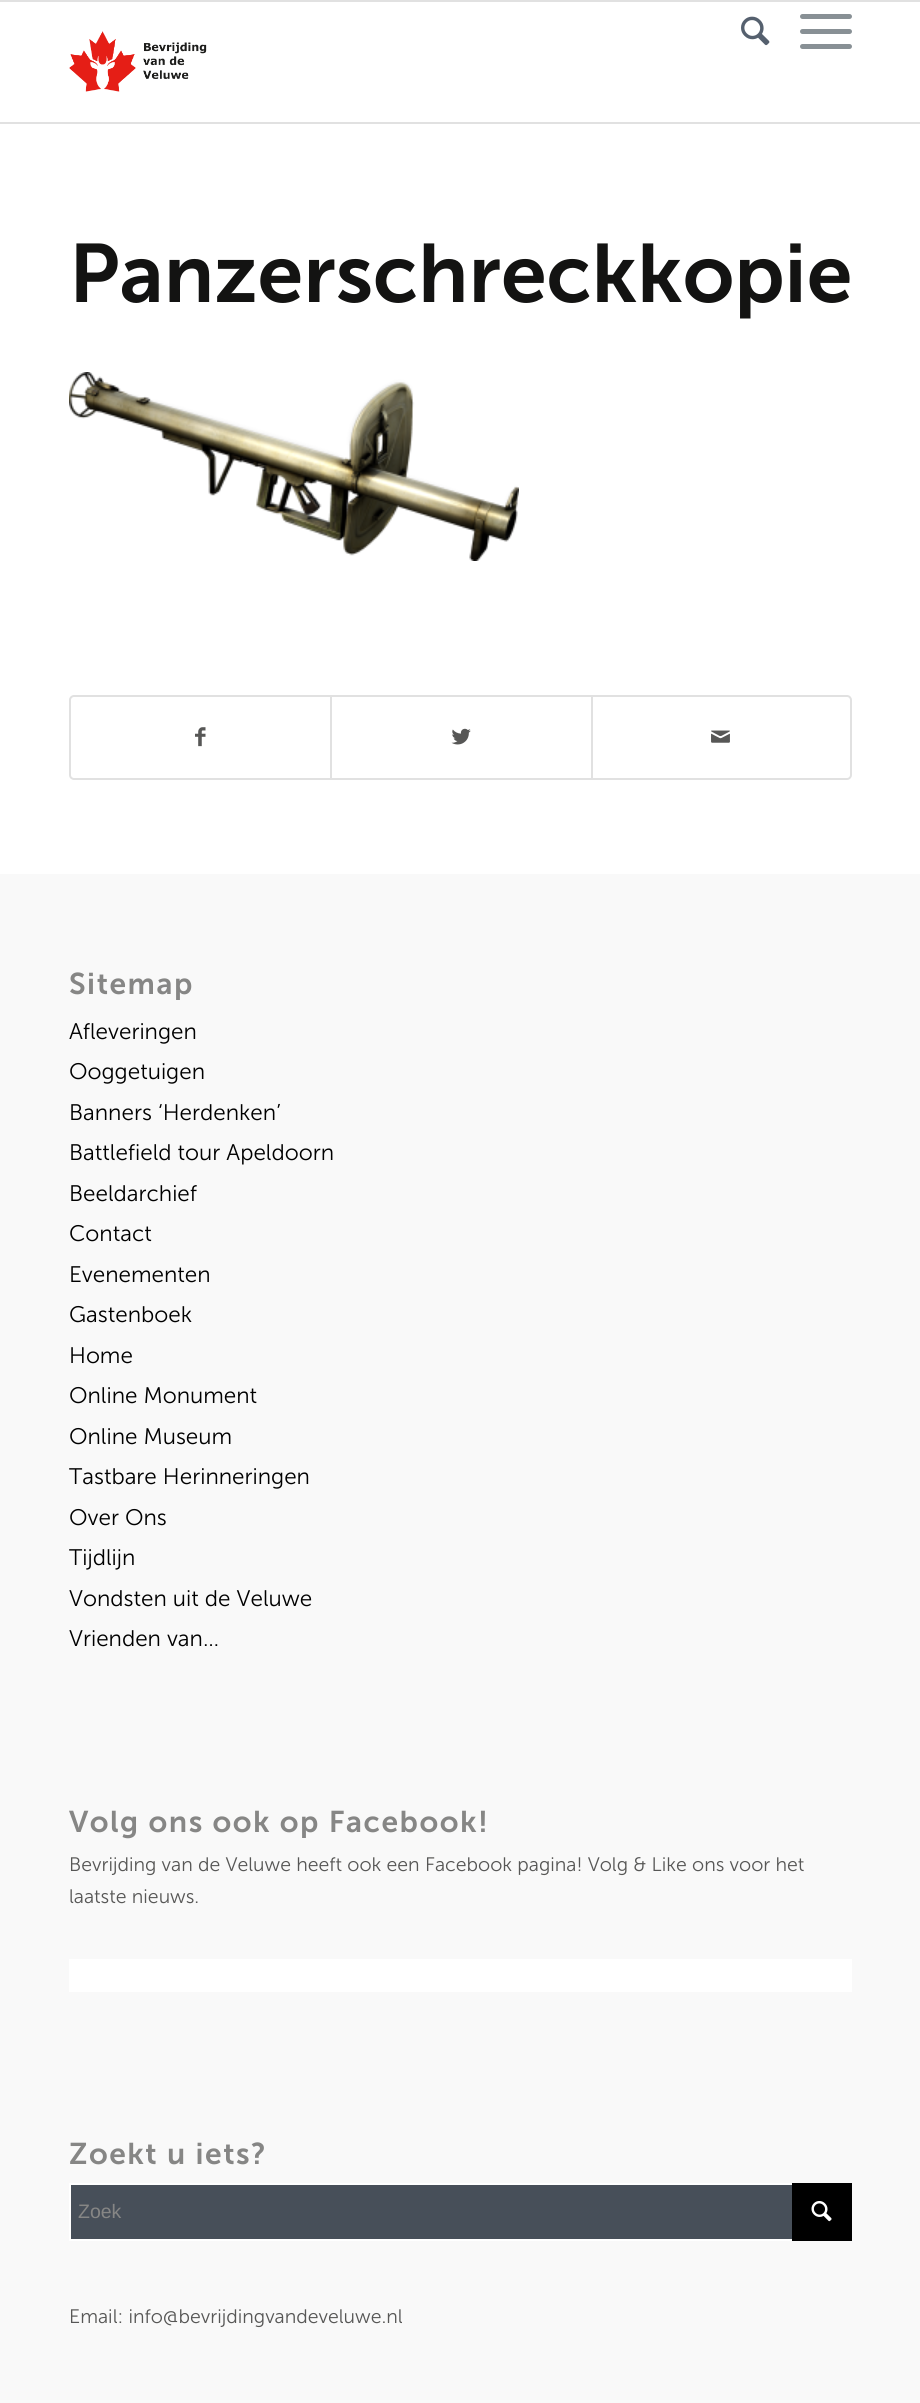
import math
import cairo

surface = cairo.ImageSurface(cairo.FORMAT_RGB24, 920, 2403)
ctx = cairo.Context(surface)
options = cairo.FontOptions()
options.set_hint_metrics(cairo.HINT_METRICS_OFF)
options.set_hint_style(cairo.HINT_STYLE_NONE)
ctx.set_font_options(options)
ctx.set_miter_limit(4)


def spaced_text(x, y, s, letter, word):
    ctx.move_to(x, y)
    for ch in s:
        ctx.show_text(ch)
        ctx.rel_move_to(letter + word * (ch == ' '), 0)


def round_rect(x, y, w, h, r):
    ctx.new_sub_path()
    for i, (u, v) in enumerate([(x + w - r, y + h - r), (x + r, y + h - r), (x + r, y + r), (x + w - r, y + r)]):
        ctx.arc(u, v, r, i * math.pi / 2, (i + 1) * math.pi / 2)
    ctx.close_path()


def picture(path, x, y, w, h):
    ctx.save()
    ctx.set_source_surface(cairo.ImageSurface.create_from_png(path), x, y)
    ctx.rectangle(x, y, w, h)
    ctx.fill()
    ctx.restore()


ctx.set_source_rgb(1, 1, 1)
ctx.paint()
ctx.set_source_rgb(0.882, 0.882, 0.882)
ctx.rectangle(0, 0, 920, 2)
ctx.fill()
ctx.rectangle(0, 122, 920, 2)
ctx.fill()
picture("img1.png", 69, 31, 138, 61)
picture("img2.png", 741, 16, 29, 30)
ctx.set_source_rgb(0.533, 0.565, 0.584)
round_rect(800, 29, 52, 5, 2.5)
ctx.fill()
round_rect(800, 14, 52, 5, 2.5)
ctx.fill()
round_rect(800, 44, 52, 5, 2.5)
ctx.fill()
ctx.select_font_face("Museo Sans SemiBold")
ctx.set_font_size(82.5)
ctx.set_source_rgb(0.075, 0.075, 0.071)
ctx.move_to(69, 302)
ctx.show_text("Panzerschreckkopie")
picture("img3.png", 69, 372, 450, 189)
round_rect(70, 696, 781, 83, 4)
ctx.set_source_rgb(0.882, 0.882, 0.882)
ctx.stroke()
picture("img4.png", 195, 727, 11, 20)
ctx.rectangle(330, 696, 2, 83)
ctx.fill()
picture("img5.png", 451, 728, 20, 17)
ctx.rectangle(591, 696, 2, 83)
ctx.fill()
picture("img6.png", 711, 730, 19, 13)
ctx.set_source_rgb(0.973, 0.973, 0.973)
ctx.rectangle(0, 874, 920, 1529)
ctx.fill()
ctx.set_font_size(30)
ctx.set_source_rgb(0.525, 0.525, 0.522)
spaced_text(69, 994, "Sitemap", 1.5, 0)
ctx.select_font_face("Museo Sans Light")
ctx.set_font_size(22.5)
ctx.set_source_rgb(0, 0, 0)
ctx.move_to(69, 1039)
ctx.show_text("Afleveringen")
ctx.move_to(69, 1079)
ctx.show_text("Ooggetuigen")
ctx.move_to(69, 1120)
ctx.show_text("Banners ‘Herdenken’")
ctx.move_to(69, 1160)
ctx.show_text("Battlefield tour Apeldoorn")
ctx.move_to(69, 1201)
ctx.show_text("Beeldarchief")
ctx.move_to(69, 1241)
ctx.show_text("Contact")
ctx.move_to(69, 1282)
ctx.show_text("Evenementen")
ctx.move_to(69, 1322)
ctx.show_text("Gastenboek")
ctx.move_to(69, 1363)
ctx.show_text("Home")
ctx.move_to(69, 1403)
ctx.show_text("Online Monument")
ctx.move_to(69, 1444)
ctx.show_text("Online Museum")
ctx.move_to(69, 1484)
ctx.show_text("Tastbare Herinneringen")
ctx.move_to(69, 1525)
ctx.show_text("Over Ons")
ctx.move_to(69, 1565)
ctx.show_text("Tijdlijn")
ctx.move_to(69, 1606)
ctx.show_text("Vondsten uit de Veluwe")
ctx.move_to(69, 1646)
ctx.show_text("Vrienden van…")
ctx.select_font_face("Museo Sans SemiBold")
ctx.set_font_size(30)
ctx.set_source_rgb(0.525, 0.525, 0.522)
spaced_text(69, 1832, "Volg ons ook op Facebook!", 1.5, 0)
ctx.select_font_face("Museo Sans Light")
ctx.set_font_size(19.5)
ctx.set_source_rgb(0.341, 0.341, 0.337)
ctx.move_to(69, 1871)
ctx.show_text("Bevrijding van de Veluwe heeft ook een Facebook pagina! Volg & Like ons voor het")
ctx.move_to(69, 1903)
ctx.show_text("laatste nieuws.")
ctx.set_source_rgb(1, 1, 1)
ctx.rectangle(69, 1959, 783, 33)
ctx.fill()
ctx.select_font_face("Museo Sans SemiBold")
ctx.set_font_size(30)
ctx.set_source_rgb(0.525, 0.525, 0.522)
spaced_text(69, 2164, "Zoekt u iets?", 1.5, 0)
ctx.set_source_rgb(0.278, 0.31, 0.349)
ctx.rectangle(71, 2185, 721, 54)
ctx.fill()
ctx.rectangle(70, 2184, 781, 56)
ctx.set_source_rgb(1, 1, 1)
ctx.stroke()
ctx.select_font_face("Liberation Sans")
ctx.set_font_size(19.5)
ctx.set_source_rgb(0.525, 0.525, 0.522)
ctx.move_to(78, 2218)
ctx.show_text("Zoek")
ctx.set_source_rgb(0, 0, 0)
ctx.rectangle(792, 2183, 60, 58)
ctx.fill()
picture("img7.png", 811, 2201, 21, 21)
ctx.select_font_face("Museo Sans Light")
ctx.set_source_rgb(0.341, 0.341, 0.337)
ctx.move_to(69, 2323)
ctx.show_text("Email: info@bevrijdingvandeveluwe.nl")
surface.write_to_png("page.png")
